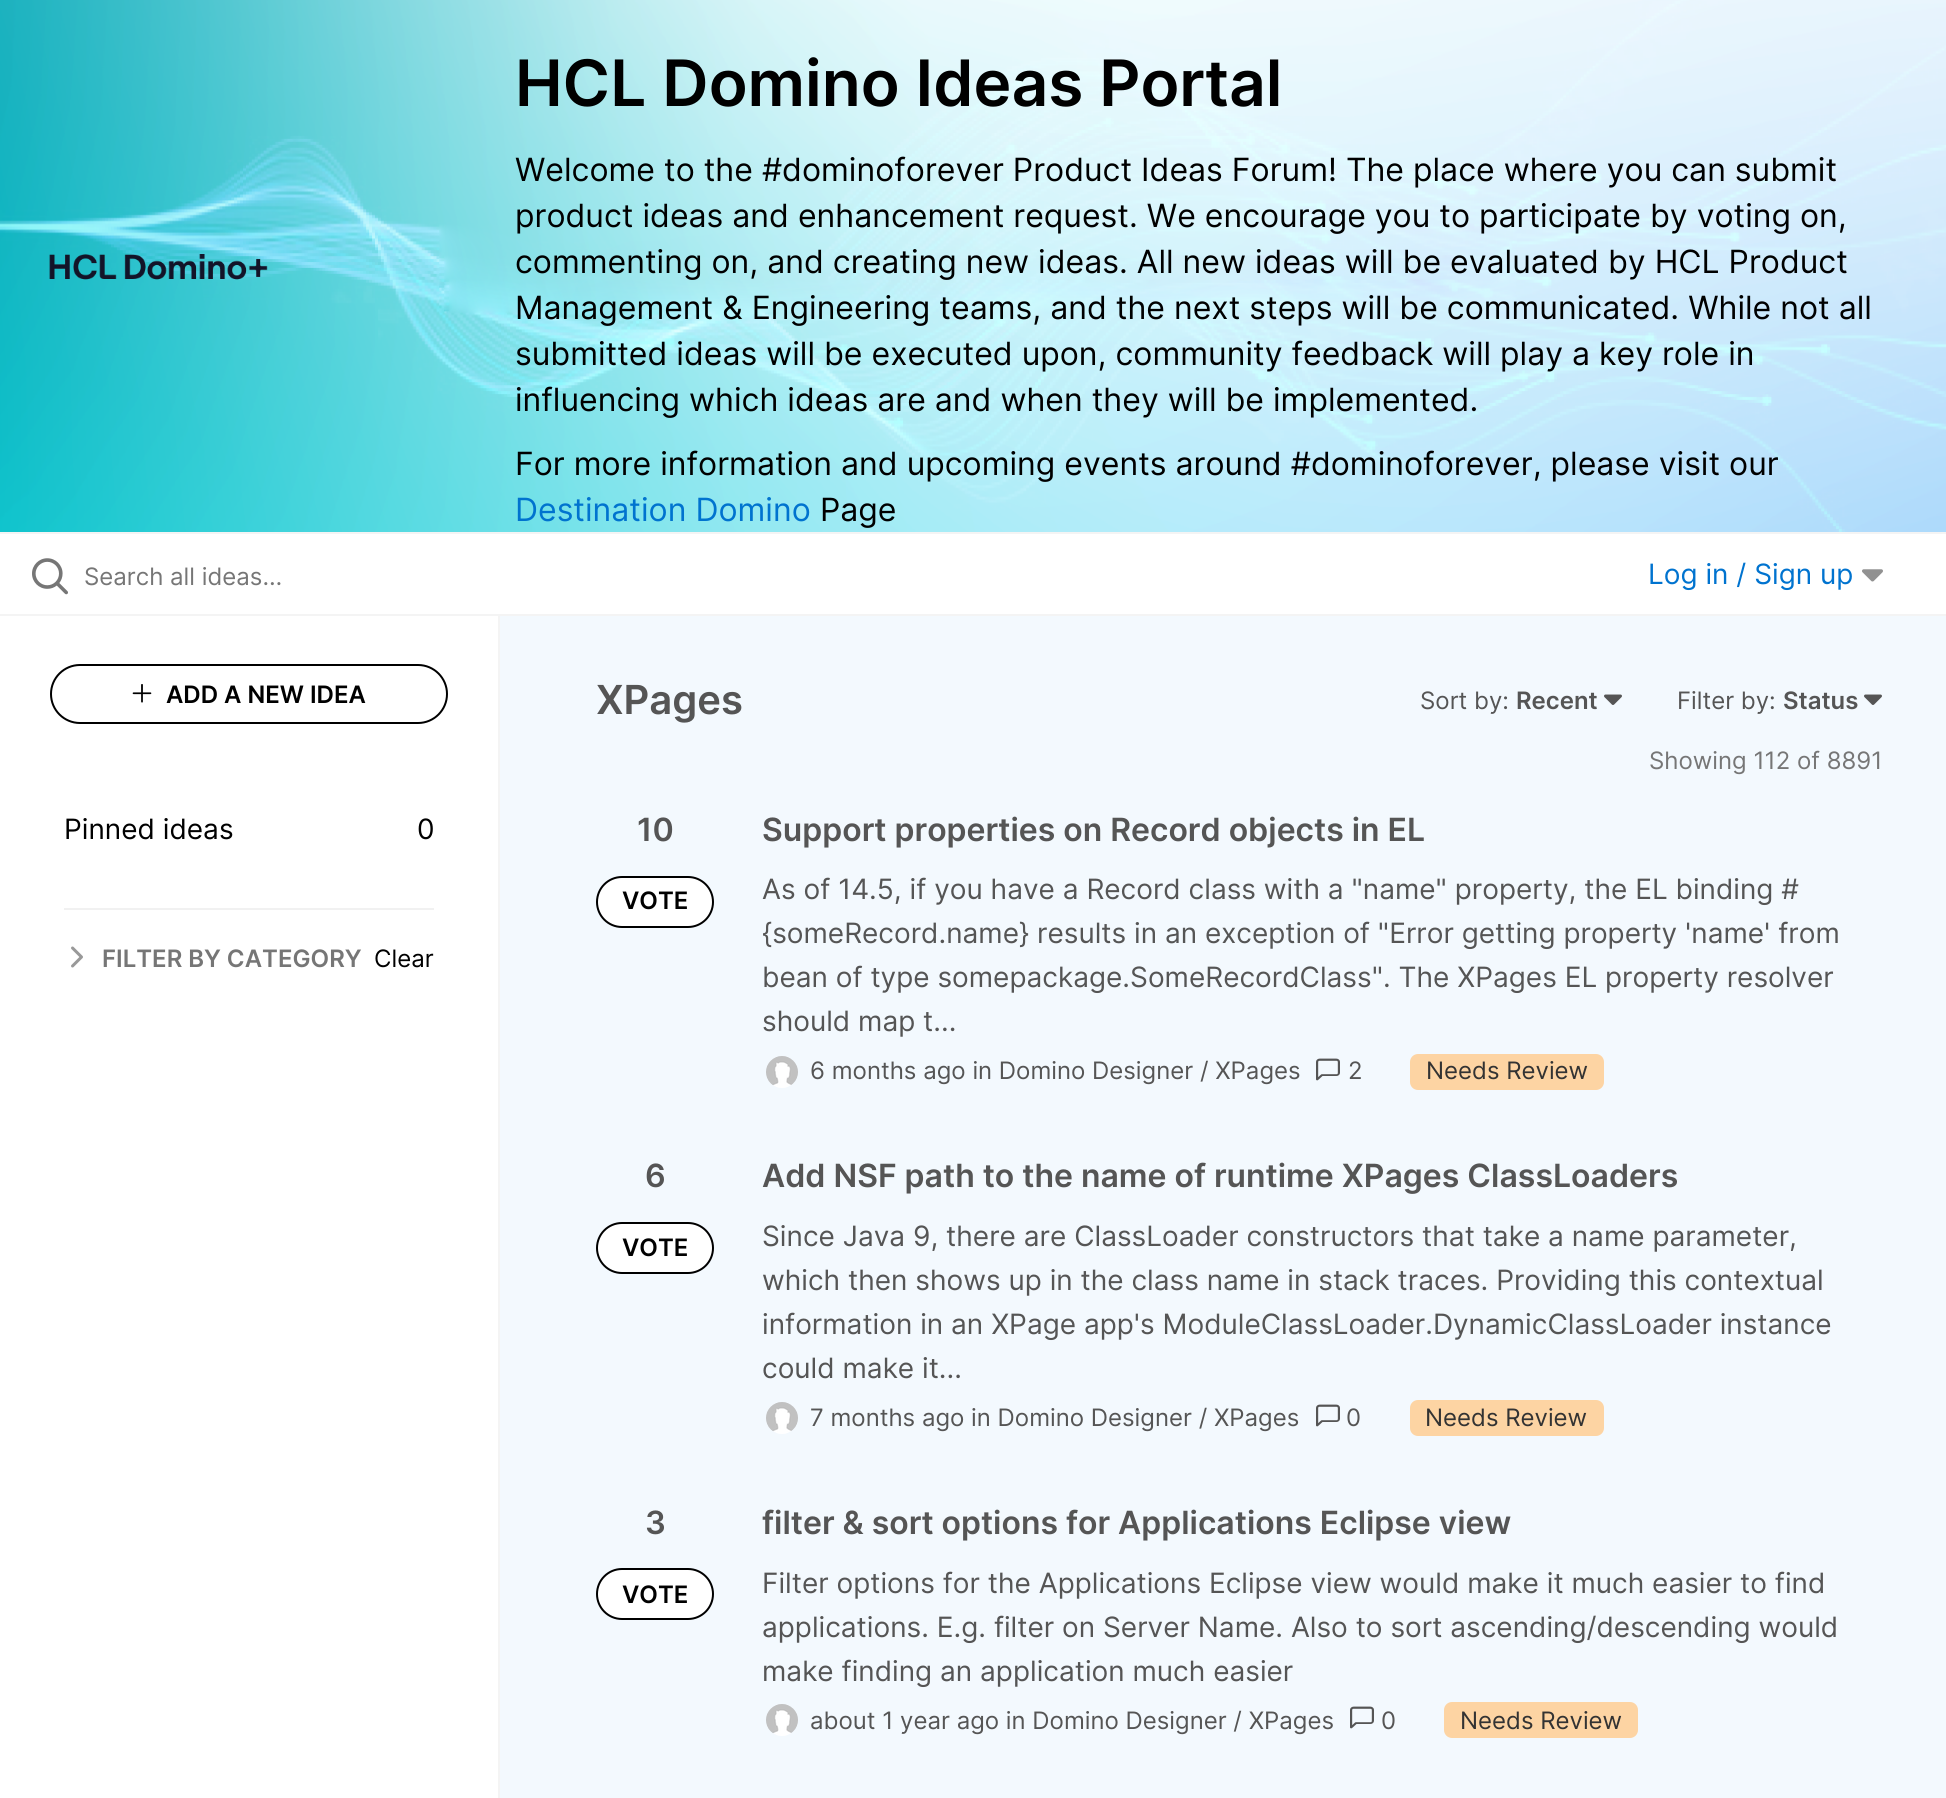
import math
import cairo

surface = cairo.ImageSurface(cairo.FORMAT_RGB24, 1946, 1798)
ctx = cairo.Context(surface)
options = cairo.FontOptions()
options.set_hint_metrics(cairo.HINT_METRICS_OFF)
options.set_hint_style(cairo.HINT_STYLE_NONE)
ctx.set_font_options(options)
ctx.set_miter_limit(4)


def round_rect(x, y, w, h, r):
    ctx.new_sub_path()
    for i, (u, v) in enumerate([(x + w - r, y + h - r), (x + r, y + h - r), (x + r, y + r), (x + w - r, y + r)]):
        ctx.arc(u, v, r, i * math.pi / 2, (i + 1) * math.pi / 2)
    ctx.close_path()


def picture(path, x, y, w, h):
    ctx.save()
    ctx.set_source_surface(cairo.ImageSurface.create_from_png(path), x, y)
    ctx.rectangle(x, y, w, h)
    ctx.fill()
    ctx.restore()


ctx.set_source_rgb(0.953, 0.976, 0.996)
ctx.paint()
picture("img1.png", 0, 0, 1946, 532)
ctx.set_source_rgb(0.957, 0.957, 0.957)
ctx.rectangle(0, 532, 1946, 2)
ctx.fill()
picture("img2.png", 49, 254, 219, 26)
ctx.select_font_face("Inter SemiBold")
ctx.set_font_size(64)
ctx.set_source_rgb(0, 0, 0)
ctx.move_to(515, 106)
ctx.show_text("HCL Domino Ideas Portal")
ctx.select_font_face("Inter")
ctx.set_font_size(32)
ctx.move_to(515, 181)
ctx.show_text("Welcome to the #dominoforever Product Ideas Forum! The place where you can submit")
ctx.move_to(515, 227)
ctx.show_text("product ideas and enhancement request. We encourage you to participate by voting on,")
ctx.move_to(515, 273)
ctx.show_text("commenting on, and creating new ideas. All new ideas will be evaluated by HCL Product")
ctx.move_to(515, 319)
ctx.show_text("Management & Engineering teams, and the next steps will be communicated. While not all")
ctx.move_to(515, 365)
ctx.show_text("submitted ideas will be executed upon, community feedback will play a key role in")
ctx.move_to(515, 411)
ctx.show_text("influencing which ideas are and when they will be implemented.")
ctx.move_to(515, 475)
ctx.show_text("For more information and upcoming events around #dominoforever, please visit our")
ctx.set_source_rgb(0, 0.451, 0.812)
ctx.move_to(515, 521)
ctx.show_text("Destination Domino")
ctx.set_source_rgb(0, 0, 0)
ctx.move_to(820, 521)
ctx.show_text("Page")
ctx.set_source_rgb(1, 1, 1)
ctx.rectangle(0, 534, 1946, 80)
ctx.fill()
ctx.set_source_rgb(0.957, 0.957, 0.957)
ctx.rectangle(0, 614, 1946, 2)
ctx.fill()
picture("img3.png", 32, 558, 36, 37)
ctx.set_font_size(24)
ctx.set_source_rgb(0.463, 0.463, 0.463)
ctx.move_to(84, 585)
ctx.show_text("Search all ideas…")
ctx.set_font_size(28)
ctx.set_source_rgb(0, 0.451, 0.812)
ctx.move_to(1648, 584)
ctx.show_text("Log in / Sign up")
picture("img4.png", 1862, 569, 21, 13)
ctx.set_source_rgb(1, 1, 1)
ctx.rectangle(0, 616, 498, 1182)
ctx.fill()
ctx.set_source_rgb(0.957, 0.957, 0.957)
ctx.rectangle(498, 616, 2, 1182)
ctx.fill()
round_rect(51, 665, 396, 58, 29)
ctx.set_source_rgb(0, 0, 0)
ctx.stroke()
picture("img5.png", 132, 684, 20, 19)
ctx.select_font_face("Inter SemiBold")
ctx.set_font_size(24)
ctx.move_to(166, 703)
ctx.show_text("ADD A NEW IDEA")
ctx.select_font_face("Inter")
ctx.set_font_size(28)
ctx.move_to(64, 839)
ctx.show_text("Pinned ideas")
ctx.move_to(417, 839)
ctx.show_text("0")
ctx.set_source_rgb(0.945, 0.945, 0.945)
ctx.rectangle(64, 908, 370, 2)
ctx.fill()
picture("img6.png", 71, 946, 12, 22)
ctx.select_font_face("Inter SemiBold")
ctx.set_font_size(24)
ctx.set_source_rgb(0.463, 0.463, 0.463)
ctx.move_to(102, 967)
ctx.show_text("FILTER BY CATEGORY")
ctx.select_font_face("Inter")
ctx.set_source_rgb(0, 0, 0)
ctx.move_to(374, 967)
ctx.show_text("Clear")
ctx.select_font_face("Inter SemiBold")
ctx.set_font_size(40)
ctx.set_source_rgb(0.333, 0.333, 0.333)
ctx.move_to(596, 714)
ctx.show_text("XPages")
ctx.select_font_face("Inter")
ctx.set_font_size(24)
ctx.move_to(1420, 709)
ctx.show_text("Sort by:")
ctx.select_font_face("Inter SemiBold")
ctx.move_to(1516, 709)
ctx.show_text("Recent")
picture("img7.png", 1604, 694, 18, 11)
ctx.select_font_face("Inter")
ctx.move_to(1677, 709)
ctx.show_text("Filter by:")
ctx.select_font_face("Inter SemiBold")
ctx.move_to(1783, 709)
ctx.show_text("Status")
picture("img7.png", 1864, 694, 18, 11)
ctx.select_font_face("Inter")
ctx.set_source_rgb(0.463, 0.463, 0.463)
ctx.move_to(1649, 769)
ctx.show_text("Showing 112 of 8891")
ctx.select_font_face("Inter SemiBold")
ctx.set_font_size(32)
ctx.set_source_rgb(0.333, 0.333, 0.333)
ctx.move_to(637, 841)
ctx.show_text("10")
ctx.set_source_rgb(1, 1, 1)
round_rect(597, 877, 116, 50, 25)
ctx.fill_preserve()
ctx.set_source_rgb(0, 0, 0)
ctx.stroke()
ctx.set_font_size(24)
ctx.move_to(622, 909)
ctx.show_text("VOTE")
ctx.set_font_size(32)
ctx.set_source_rgb(0.333, 0.333, 0.333)
ctx.move_to(762, 841)
ctx.show_text("Support properties on Record objects in EL")
ctx.select_font_face("Inter")
ctx.set_font_size(28)
ctx.move_to(762, 899)
ctx.show_text("As of 14.5, if you have a Record class with a \"name\" property, the EL binding #")
ctx.move_to(762, 943)
ctx.show_text("{someRecord.name} results in an exception of \"Error getting property 'name' from")
ctx.move_to(762, 987)
ctx.show_text("bean of type somepackage.SomeRecordClass\". The XPages EL property resolver")
ctx.move_to(762, 1031)
ctx.show_text("should map t...")
picture("img8.png", 766, 1056, 32, 32)
ctx.set_font_size(24)
ctx.move_to(810, 1079)
ctx.show_text("6 months ago in Domino Designer / XPages")
picture("img9.png", 1316, 1058, 24, 23)
ctx.move_to(1348, 1079)
ctx.show_text("2")
ctx.set_source_rgb(0.992, 0.831, 0.639)
round_rect(1410, 1054, 194, 36, 8)
ctx.fill()
ctx.set_source_rgb(0.2, 0.2, 0.2)
ctx.move_to(1426, 1079)
ctx.show_text("Needs Review")
ctx.select_font_face("Inter SemiBold")
ctx.set_font_size(32)
ctx.set_source_rgb(0.333, 0.333, 0.333)
ctx.move_to(645, 1187)
ctx.show_text("6")
ctx.set_source_rgb(1, 1, 1)
round_rect(597, 1223, 116, 50, 25)
ctx.fill_preserve()
ctx.set_source_rgb(0, 0, 0)
ctx.stroke()
ctx.set_font_size(24)
ctx.move_to(622, 1256)
ctx.show_text("VOTE")
ctx.set_font_size(32)
ctx.set_source_rgb(0.333, 0.333, 0.333)
ctx.move_to(762, 1187)
ctx.show_text("Add NSF path to the name of runtime XPages ClassLoaders")
ctx.select_font_face("Inter")
ctx.set_font_size(28)
ctx.move_to(762, 1246)
ctx.show_text("Since Java 9, there are ClassLoader constructors that take a name parameter,")
ctx.move_to(762, 1290)
ctx.show_text("which then shows up in the class name in stack traces. Providing this contextual")
ctx.move_to(762, 1334)
ctx.show_text("information in an XPage app's ModuleClassLoader.DynamicClassLoader instance")
ctx.move_to(762, 1378)
ctx.show_text("could make it...")
picture("img8.png", 766, 1402, 32, 32)
ctx.set_font_size(24)
ctx.move_to(810, 1426)
ctx.show_text("7 months ago in Domino Designer / XPages")
picture("img9.png", 1316, 1404, 24, 23)
ctx.move_to(1346, 1426)
ctx.show_text("0")
ctx.set_source_rgb(0.992, 0.831, 0.639)
round_rect(1410, 1400, 194, 36, 8)
ctx.fill()
ctx.set_source_rgb(0.2, 0.2, 0.2)
ctx.move_to(1425, 1426)
ctx.show_text("Needs Review")
ctx.select_font_face("Inter SemiBold")
ctx.set_font_size(32)
ctx.set_source_rgb(0.333, 0.333, 0.333)
ctx.move_to(645, 1534)
ctx.show_text("3")
ctx.set_source_rgb(1, 1, 1)
round_rect(597, 1569, 116, 50, 25)
ctx.fill_preserve()
ctx.set_source_rgb(0, 0, 0)
ctx.stroke()
ctx.set_font_size(24)
ctx.move_to(622, 1603)
ctx.show_text("VOTE")
ctx.set_font_size(32)
ctx.set_source_rgb(0.333, 0.333, 0.333)
ctx.move_to(762, 1534)
ctx.show_text("filter & sort options for Applications Eclipse view")
ctx.select_font_face("Inter")
ctx.set_font_size(28)
ctx.move_to(762, 1593)
ctx.show_text("Filter options for the Applications Eclipse view would make it much easier to find")
ctx.move_to(762, 1637)
ctx.show_text("applications. E.g. filter on Server Name. Also to sort ascending/descending would")
ctx.move_to(762, 1681)
ctx.show_text("make finding an application much easier")
picture("img8.png", 766, 1704, 32, 32)
ctx.set_font_size(24)
ctx.move_to(810, 1729)
ctx.show_text("about 1 year ago in Domino Designer / XPages")
picture("img9.png", 1350, 1706, 24, 23)
ctx.move_to(1381, 1729)
ctx.show_text("0")
ctx.set_source_rgb(0.992, 0.831, 0.639)
round_rect(1444, 1702, 194, 36, 8)
ctx.fill()
ctx.set_source_rgb(0.2, 0.2, 0.2)
ctx.move_to(1460, 1729)
ctx.show_text("Needs Review")
surface.write_to_png("page.png")
